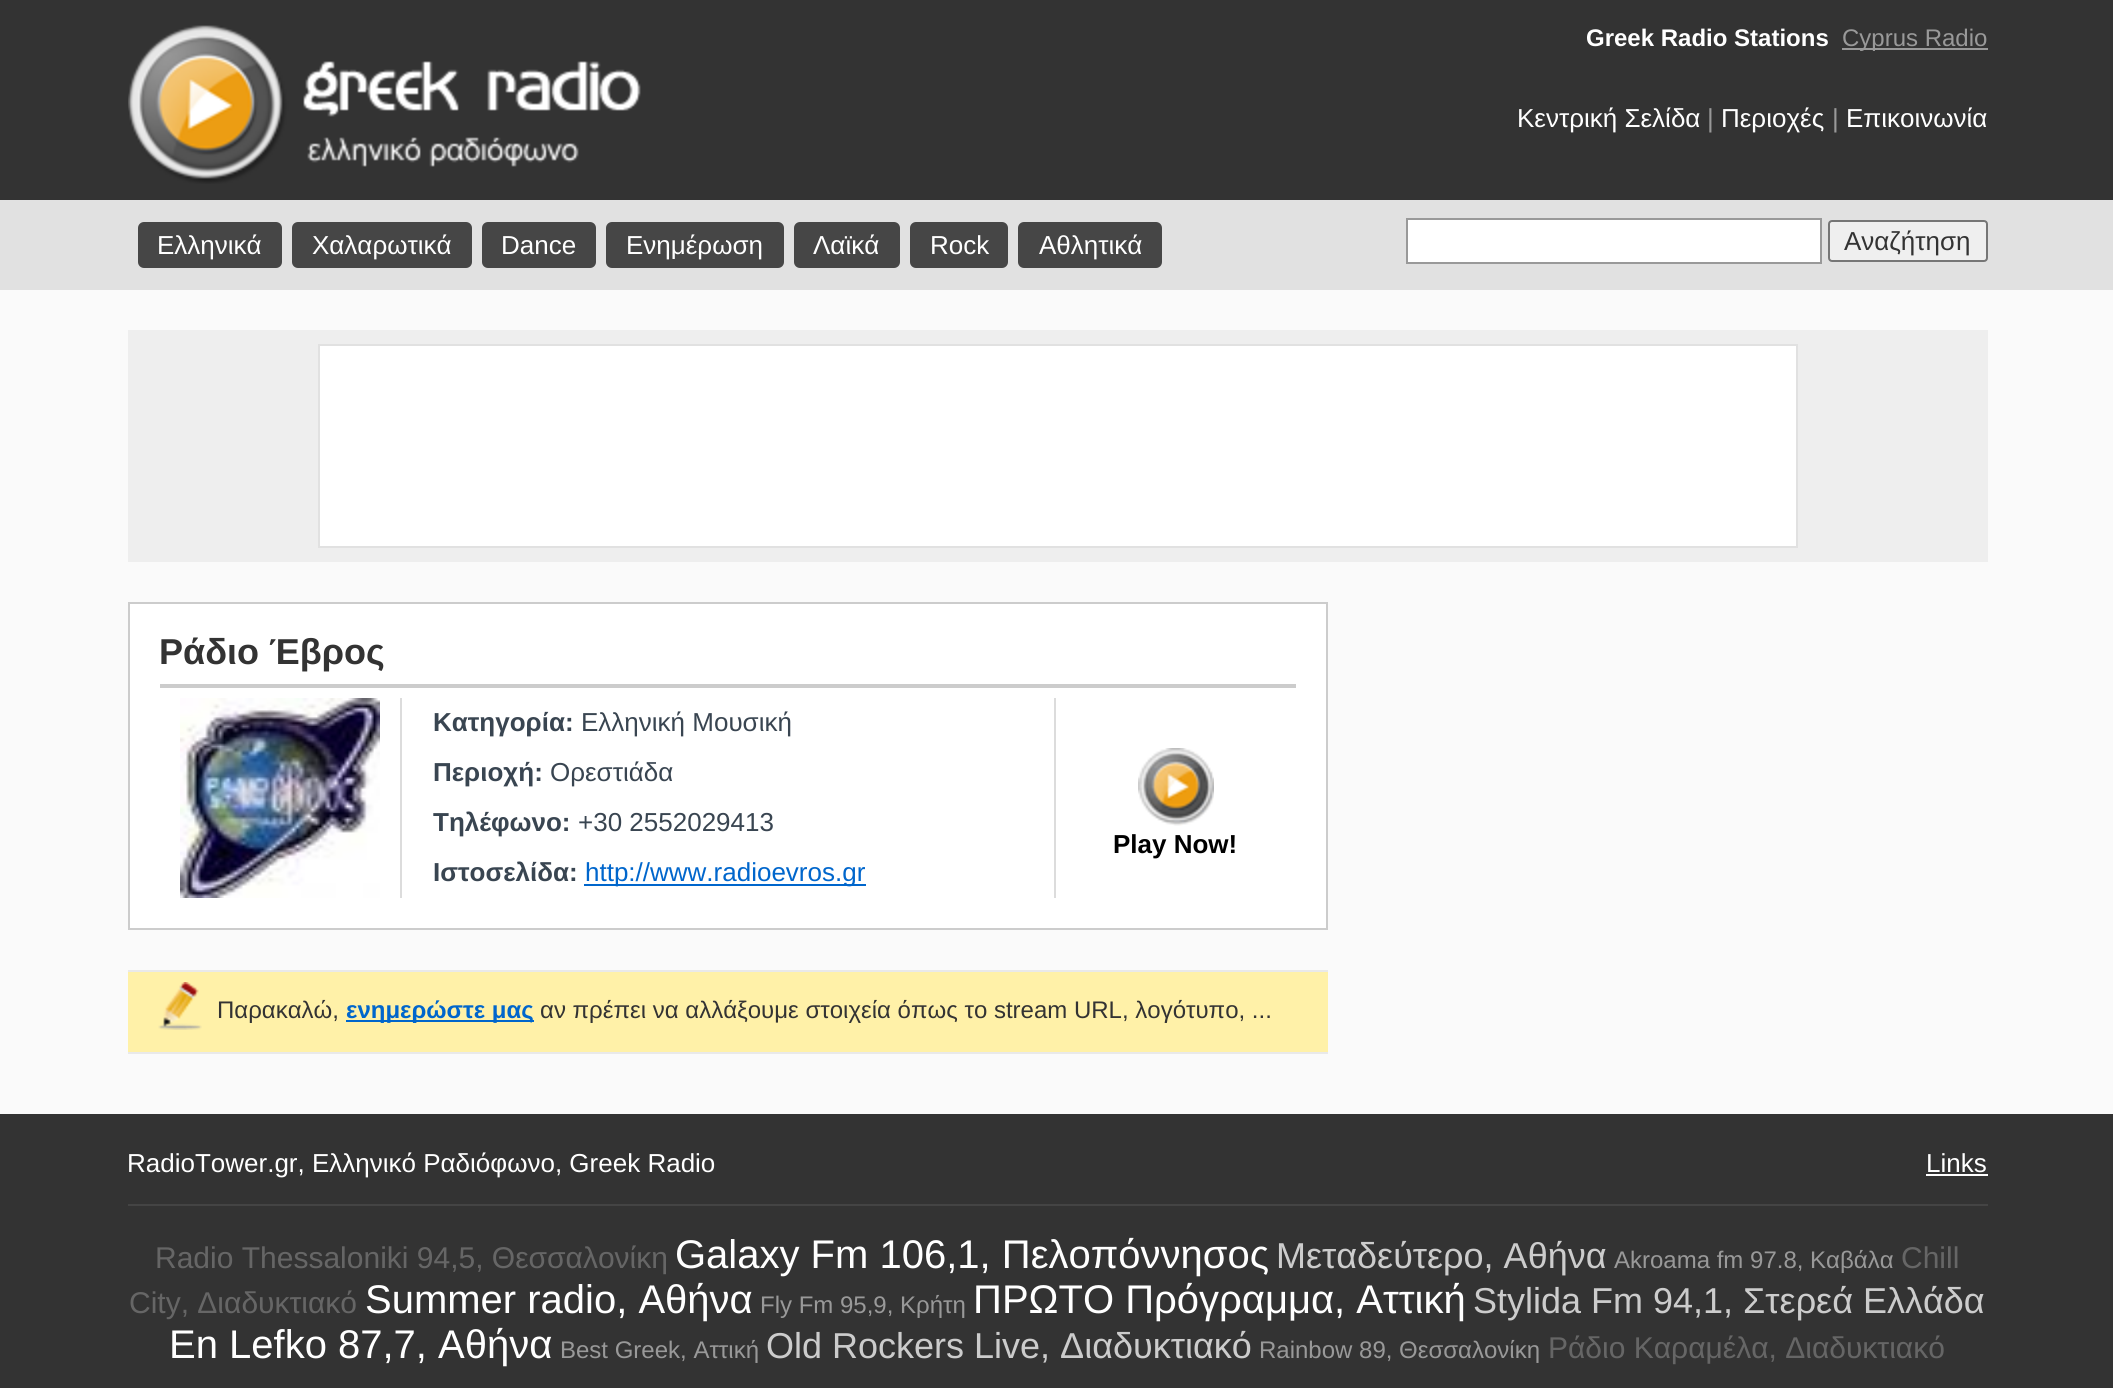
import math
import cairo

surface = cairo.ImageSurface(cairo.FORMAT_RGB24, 2113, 1388)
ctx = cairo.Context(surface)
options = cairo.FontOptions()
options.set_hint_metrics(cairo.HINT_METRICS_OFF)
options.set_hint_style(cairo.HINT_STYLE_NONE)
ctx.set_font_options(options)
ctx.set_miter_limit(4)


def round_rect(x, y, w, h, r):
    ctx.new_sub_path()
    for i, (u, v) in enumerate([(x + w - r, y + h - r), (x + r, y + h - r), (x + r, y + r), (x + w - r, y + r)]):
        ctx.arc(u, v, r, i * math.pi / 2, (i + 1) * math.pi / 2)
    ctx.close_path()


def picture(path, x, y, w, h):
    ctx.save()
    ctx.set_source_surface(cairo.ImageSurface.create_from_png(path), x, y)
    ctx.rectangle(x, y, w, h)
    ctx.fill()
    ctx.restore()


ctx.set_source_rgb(0.98, 0.98, 0.98)
ctx.paint()
ctx.set_source_rgb(0.2, 0.2, 0.2)
ctx.rectangle(0, 0, 2113, 200)
ctx.fill()
picture("img1.png", 128, 25, 513, 159)
ctx.select_font_face("Liberation Sans", cairo.FONT_SLANT_NORMAL, cairo.FONT_WEIGHT_BOLD)
ctx.set_font_size(24)
ctx.set_source_rgb(1, 1, 1)
ctx.move_to(1586, 46)
ctx.show_text("Greek Radio Stations")
ctx.set_source_rgb(0.6, 0.6, 0.6)
ctx.rectangle(1842, 48, 146, 2)
ctx.fill()
ctx.select_font_face("Liberation Sans")
ctx.move_to(1842, 46)
ctx.show_text("Cyprus Radio")
ctx.set_font_size(26)
ctx.set_source_rgb(1, 1, 1)
ctx.move_to(1517, 127)
ctx.show_text("Κεντρική Σελίδα")
ctx.set_source_rgb(0.6, 0.6, 0.6)
ctx.move_to(1707, 127)
ctx.show_text("|")
ctx.set_source_rgb(1, 1, 1)
ctx.move_to(1721, 127)
ctx.show_text("Περιοχές")
ctx.set_source_rgb(0.6, 0.6, 0.6)
ctx.move_to(1832, 127)
ctx.show_text("|")
ctx.set_source_rgb(1, 1, 1)
ctx.move_to(1846, 127)
ctx.show_text("Επικοινωνία")
ctx.set_source_rgb(0.882, 0.882, 0.882)
ctx.rectangle(0, 200, 2113, 90)
ctx.fill()
ctx.set_source_rgb(0.275, 0.275, 0.275)
round_rect(138, 222, 144, 46, 6)
ctx.fill()
ctx.set_source_rgb(1, 1, 1)
ctx.move_to(157, 254)
ctx.show_text("Ελληνικά")
ctx.set_source_rgb(0.275, 0.275, 0.275)
round_rect(292, 222, 180, 46, 6)
ctx.fill()
ctx.set_source_rgb(1, 1, 1)
ctx.move_to(312, 254)
ctx.show_text("Χαλαρωτικά")
ctx.set_source_rgb(0.275, 0.275, 0.275)
round_rect(482, 222, 114, 46, 6)
ctx.fill()
ctx.set_source_rgb(1, 1, 1)
ctx.move_to(501, 254)
ctx.show_text("Dance")
ctx.set_source_rgb(0.275, 0.275, 0.275)
round_rect(606, 222, 178, 46, 6)
ctx.fill()
ctx.set_source_rgb(1, 1, 1)
ctx.move_to(626, 254)
ctx.show_text("Ενημέρωση")
ctx.set_source_rgb(0.275, 0.275, 0.275)
round_rect(794, 222, 106, 46, 6)
ctx.fill()
ctx.set_source_rgb(1, 1, 1)
ctx.move_to(813, 254)
ctx.show_text("Λαϊκά")
ctx.set_source_rgb(0.275, 0.275, 0.275)
round_rect(910, 222, 98, 46, 6)
ctx.fill()
ctx.set_source_rgb(1, 1, 1)
ctx.move_to(930, 254)
ctx.show_text("Rock")
ctx.set_source_rgb(0.275, 0.275, 0.275)
round_rect(1018, 222, 144, 46, 6)
ctx.fill()
ctx.set_source_rgb(1, 1, 1)
ctx.move_to(1039, 254)
ctx.show_text("Αθλητικά")
ctx.rectangle(1407, 219, 414, 44)
ctx.fill_preserve()
ctx.set_source_rgb(0.6, 0.6, 0.6)
ctx.stroke()
ctx.set_source_rgb(0.937, 0.937, 0.937)
round_rect(1829, 221, 158, 40, 3)
ctx.fill_preserve()
ctx.set_source_rgb(0.463, 0.463, 0.463)
ctx.stroke()
ctx.set_source_rgb(0.2, 0.2, 0.2)
ctx.move_to(1844, 250)
ctx.show_text("Αναζήτηση")
ctx.set_source_rgb(0.933, 0.933, 0.933)
ctx.rectangle(128, 330, 1860, 232)
ctx.fill()
ctx.set_source_rgb(1, 1, 1)
ctx.rectangle(319, 345, 1478, 202)
ctx.fill_preserve()
ctx.set_source_rgb(0.882, 0.882, 0.882)
ctx.stroke()
ctx.set_source_rgb(1, 1, 1)
ctx.rectangle(129, 603, 1198, 326)
ctx.fill_preserve()
ctx.set_source_rgb(0.8, 0.8, 0.8)
ctx.stroke()
ctx.rectangle(160, 684, 1136, 4)
ctx.fill()
ctx.select_font_face("Liberation Sans", cairo.FONT_SLANT_NORMAL, cairo.FONT_WEIGHT_BOLD)
ctx.set_font_size(36)
ctx.set_source_rgb(0.2, 0.2, 0.2)
ctx.move_to(159, 664)
ctx.show_text("Ράδιο Έβρος")
ctx.set_source_rgb(0.863, 0.863, 0.863)
ctx.rectangle(400, 698, 2, 200)
ctx.fill()
picture("img2.png", 180, 698, 200, 200)
ctx.set_font_size(26)
ctx.set_source_rgb(0.224, 0.271, 0.318)
ctx.move_to(433, 731)
ctx.show_text("Κατηγορία:")
ctx.select_font_face("Liberation Sans")
ctx.move_to(581, 731)
ctx.show_text("Ελληνική Μουσική")
ctx.select_font_face("Liberation Sans", cairo.FONT_SLANT_NORMAL, cairo.FONT_WEIGHT_BOLD)
ctx.move_to(433, 781)
ctx.show_text("Περιοχή:")
ctx.select_font_face("Liberation Sans")
ctx.move_to(550, 781)
ctx.show_text("Ορεστιάδα")
ctx.select_font_face("Liberation Sans", cairo.FONT_SLANT_NORMAL, cairo.FONT_WEIGHT_BOLD)
ctx.move_to(433, 831)
ctx.show_text("Τηλέφωνο:")
ctx.select_font_face("Liberation Sans")
ctx.move_to(578, 831)
ctx.show_text("+30 2552029413")
ctx.select_font_face("Liberation Sans", cairo.FONT_SLANT_NORMAL, cairo.FONT_WEIGHT_BOLD)
ctx.move_to(433, 881)
ctx.show_text("Ιστοσελίδα:")
ctx.set_source_rgb(0, 0.4, 0.8)
ctx.rectangle(584, 884, 282, 2)
ctx.fill()
ctx.select_font_face("Liberation Sans")
ctx.move_to(585, 881)
ctx.show_text("http://www.radioevros.gr")
ctx.set_source_rgb(0.863, 0.863, 0.863)
ctx.rectangle(1054, 698, 2, 200)
ctx.fill()
picture("img3.png", 1138, 748, 76, 78)
ctx.select_font_face("Liberation Sans", cairo.FONT_SLANT_NORMAL, cairo.FONT_WEIGHT_BOLD)
ctx.set_source_rgb(0, 0, 0)
ctx.move_to(1113, 853)
ctx.show_text("Play Now!")
ctx.set_source_rgb(1, 0.945, 0.659)
ctx.rectangle(128, 972, 1200, 80)
ctx.fill()
ctx.set_source_rgb(0.914, 0.914, 0.914)
ctx.rectangle(128, 970, 1200, 2)
ctx.fill()
ctx.rectangle(128, 1052, 1200, 2)
ctx.fill()
picture("img4.png", 158, 982, 44, 48)
ctx.select_font_face("Liberation Sans")
ctx.set_font_size(24)
ctx.set_source_rgb(0.2, 0.2, 0.2)
ctx.move_to(217, 1018)
ctx.show_text("Παρακαλώ,")
ctx.set_source_rgb(0, 0.4, 0.8)
ctx.rectangle(346, 1020, 188, 2)
ctx.fill()
ctx.select_font_face("Liberation Sans", cairo.FONT_SLANT_NORMAL, cairo.FONT_WEIGHT_BOLD)
ctx.move_to(346, 1018)
ctx.show_text("ενημερώστε μας")
ctx.select_font_face("Liberation Sans")
ctx.set_source_rgb(0.2, 0.2, 0.2)
ctx.move_to(540, 1018)
ctx.show_text("αν πρέπει να αλλάξουμε στοιχεία όπως το stream URL, λογότυπο, ...")
ctx.rectangle(0, 1114, 2113, 274)
ctx.fill()
ctx.set_font_size(26)
ctx.set_source_rgb(1, 1, 1)
ctx.move_to(127, 1172)
ctx.show_text("RadioTower.gr, Ελληνικό Ραδιόφωνο, Greek Radio")
ctx.move_to(1926, 1172)
ctx.show_text("Links")
ctx.rectangle(1926, 1174, 62, 2)
ctx.fill()
ctx.set_source_rgb(0.267, 0.267, 0.267)
ctx.rectangle(128, 1204, 1860, 2)
ctx.fill()
ctx.set_font_size(30)
ctx.set_source_rgb(0.4, 0.4, 0.4)
ctx.move_to(155, 1268)
ctx.show_text("Radio Thessaloniki 94,5, Θεσσαλονίκη")
ctx.set_font_size(40)
ctx.set_source_rgb(1, 1, 1)
ctx.move_to(675, 1268)
ctx.show_text("Galaxy Fm 106,1, Πελοπόννησος")
ctx.set_font_size(36)
ctx.set_source_rgb(0.8, 0.8, 0.8)
ctx.move_to(1276, 1268)
ctx.show_text("Μεταδεύτερο, Αθήνα")
ctx.set_font_size(24)
ctx.set_source_rgb(0.6, 0.6, 0.6)
ctx.move_to(1614, 1268)
ctx.show_text("Akroama fm 97.8, Καβάλα")
ctx.set_font_size(30)
ctx.set_source_rgb(0.4, 0.4, 0.4)
ctx.move_to(1901, 1268)
ctx.show_text("Chill")
ctx.move_to(129, 1313)
ctx.show_text("City, Διαδυκτιακό")
ctx.set_font_size(40)
ctx.set_source_rgb(1, 1, 1)
ctx.move_to(365, 1313)
ctx.show_text("Summer radio, Αθήνα")
ctx.set_font_size(24)
ctx.set_source_rgb(0.6, 0.6, 0.6)
ctx.move_to(760, 1313)
ctx.show_text("Fly Fm 95,9, Κρήτη")
ctx.set_font_size(40)
ctx.set_source_rgb(1, 1, 1)
ctx.move_to(973, 1313)
ctx.show_text("ΠΡΩΤΟ Πρόγραμμα, Αττική")
ctx.set_font_size(36)
ctx.set_source_rgb(0.8, 0.8, 0.8)
ctx.move_to(1473, 1313)
ctx.show_text("Stylida Fm 94,1, Στερεά Ελλάδα")
ctx.set_font_size(40)
ctx.set_source_rgb(1, 1, 1)
ctx.move_to(169, 1358)
ctx.show_text("En Lefko 87,7, Αθήνα")
ctx.set_font_size(24)
ctx.set_source_rgb(0.6, 0.6, 0.6)
ctx.move_to(560, 1358)
ctx.show_text("Best Greek, Αττική")
ctx.set_font_size(36)
ctx.set_source_rgb(0.8, 0.8, 0.8)
ctx.move_to(766, 1358)
ctx.show_text("Old Rockers Live, Διαδυκτιακό")
ctx.set_font_size(24)
ctx.set_source_rgb(0.6, 0.6, 0.6)
ctx.move_to(1259, 1358)
ctx.show_text("Rainbow 89, Θεσσαλονίκη")
ctx.set_font_size(30)
ctx.set_source_rgb(0.4, 0.4, 0.4)
ctx.move_to(1548, 1358)
ctx.show_text("Ράδιο Καραμέλα, Διαδυκτιακό")
surface.write_to_png("page.png")
